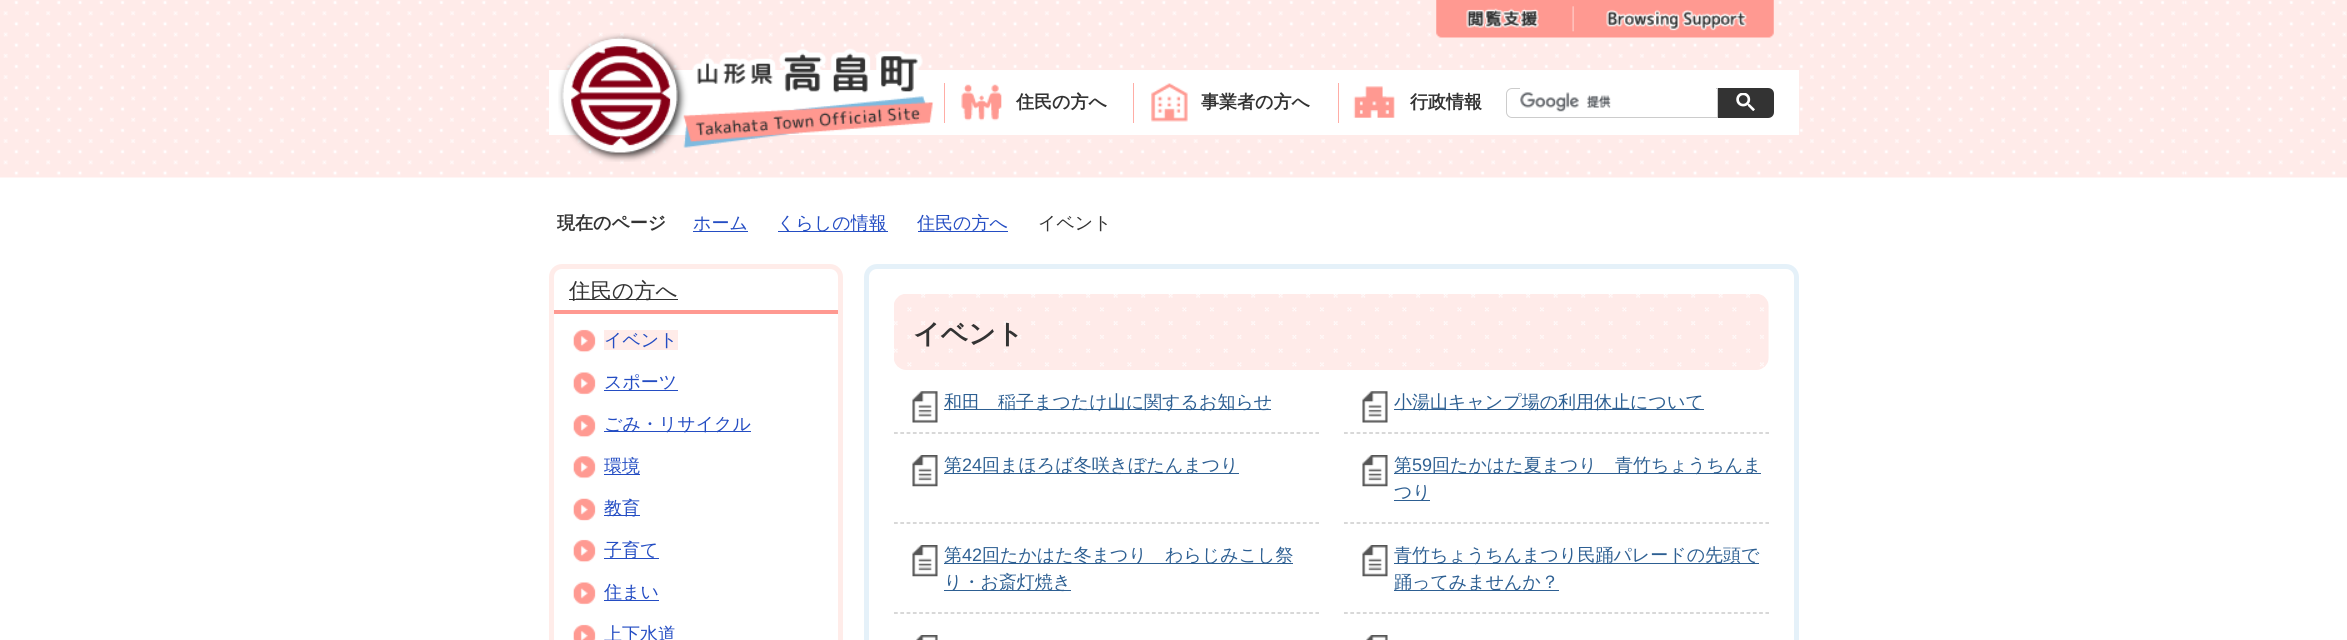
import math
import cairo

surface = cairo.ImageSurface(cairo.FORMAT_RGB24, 2347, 640)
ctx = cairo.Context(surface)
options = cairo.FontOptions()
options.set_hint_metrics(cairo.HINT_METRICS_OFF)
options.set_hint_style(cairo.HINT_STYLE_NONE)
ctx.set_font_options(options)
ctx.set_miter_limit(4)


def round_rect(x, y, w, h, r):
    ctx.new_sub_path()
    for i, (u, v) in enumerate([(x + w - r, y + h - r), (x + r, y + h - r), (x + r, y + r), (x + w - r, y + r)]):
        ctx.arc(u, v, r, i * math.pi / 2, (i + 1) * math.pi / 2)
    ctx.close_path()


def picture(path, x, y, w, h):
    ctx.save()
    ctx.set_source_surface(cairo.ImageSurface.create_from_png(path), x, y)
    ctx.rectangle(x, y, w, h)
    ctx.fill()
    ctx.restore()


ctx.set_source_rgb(1, 1, 1)
ctx.paint()
picture("img1.png", 0, 0, 2347, 178)
picture("img2.png", 1436, 0, 338, 38)
ctx.set_source_rgb(1, 1, 1)
ctx.rectangle(549, 70, 1250, 65)
ctx.fill()
picture("img3.png", 558, 33, 376, 129)
picture("img4.png", 961, 84, 41, 37)
ctx.set_source_rgb(1, 0.678, 0.651)
ctx.rectangle(944, 83, 1, 40)
ctx.fill()
ctx.select_font_face("WenQuanYi Zen Hei", cairo.FONT_SLANT_NORMAL, cairo.FONT_WEIGHT_BOLD)
ctx.set_font_size(18)
ctx.set_source_rgb(0.2, 0.2, 0.2)
ctx.move_to(1016, 108)
ctx.show_text("住民の方へ")
picture("img5.png", 1151, 83, 37, 39)
ctx.set_source_rgb(1, 0.678, 0.651)
ctx.rectangle(1133, 83, 1, 40)
ctx.fill()
ctx.set_source_rgb(0.2, 0.2, 0.2)
ctx.move_to(1201, 108)
ctx.show_text("事業者の方へ")
picture("img6.png", 1353, 86, 42, 32)
ctx.set_source_rgb(1, 0.678, 0.651)
ctx.rectangle(1338, 83, 1, 40)
ctx.fill()
ctx.set_source_rgb(0.2, 0.2, 0.2)
ctx.move_to(1410, 108)
ctx.show_text("行政情報")
ctx.new_path()
ctx.move_to(1512, 88.5)
ctx.line_to(1717.5, 88.5)
ctx.line_to(1717.5, 117.5)
ctx.line_to(1512, 117.5)
ctx.curve_to(1509, 117.5, 1506.5, 115, 1506.5, 112)
ctx.line_to(1506.5, 94)
ctx.curve_to(1506.5, 91, 1509, 88.5, 1512, 88.5)
ctx.close_path()
ctx.set_source_rgb(0.8, 0.8, 0.8)
ctx.set_line_width(1)
ctx.stroke()
ctx.set_source_rgb(1, 1, 1)
ctx.rectangle(1520, 88, 196, 1)
ctx.fill()
picture("img7.png", 1520, 92, 91, 20)
ctx.set_source_rgb(0.2, 0.2, 0.2)
ctx.new_path()
ctx.move_to(1718, 88)
ctx.line_to(1768, 88)
ctx.curve_to(1771.5, 88, 1774, 90.5, 1774, 94)
ctx.line_to(1774, 112)
ctx.curve_to(1774, 115.5, 1771.5, 118, 1768, 118)
ctx.line_to(1718, 118)
ctx.close_path()
ctx.fill()
picture("img8.png", 1736, 93, 19, 18)
ctx.move_to(557, 229)
ctx.show_text("現在のページ")
ctx.select_font_face("WenQuanYi Zen Hei Medium")
ctx.set_source_rgb(0.141, 0.302, 0.765)
ctx.move_to(693, 229)
ctx.show_text("ホーム")
ctx.rectangle(693, 231, 55, 1)
ctx.fill()
ctx.rectangle(778, 231, 110, 1)
ctx.fill()
ctx.move_to(777, 229)
ctx.show_text("くらしの情報")
ctx.rectangle(918, 231, 90, 1)
ctx.fill()
ctx.move_to(917, 229)
ctx.show_text("住民の方へ")
ctx.set_source_rgb(0.2, 0.2, 0.2)
ctx.move_to(1038, 229)
ctx.show_text("イベント")
round_rect(551.5, 266.5, 289, 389, 10.5)
ctx.set_source_rgb(1, 0.922, 0.914)
ctx.set_line_width(5)
ctx.stroke()
ctx.set_source_rgb(1, 0.6, 0.569)
ctx.rectangle(554, 310, 284, 4)
ctx.fill()
ctx.set_source_rgb(0.2, 0.2, 0.2)
ctx.rectangle(569, 299, 109, 1)
ctx.fill()
ctx.set_font_size(21.5)
ctx.move_to(569, 298)
ctx.show_text("住民の方へ")
picture("img9.png", 573, 329, 23, 24)
ctx.set_source_rgb(1, 0.922, 0.914)
ctx.rectangle(604, 330, 74, 20)
ctx.fill()
ctx.set_font_size(18)
ctx.set_source_rgb(0.141, 0.302, 0.765)
ctx.move_to(604, 346)
ctx.show_text("イベント")
picture("img10.png", 573, 372, 23, 23)
ctx.move_to(604, 388)
ctx.show_text("スポーツ")
ctx.rectangle(604, 390, 74, 1)
ctx.fill()
picture("img9.png", 573, 414, 23, 24)
ctx.rectangle(604, 431, 147, 1)
ctx.fill()
ctx.move_to(604, 430)
ctx.show_text("ごみ・リサイクル")
picture("img11.png", 573, 456, 23, 23)
ctx.rectangle(604, 474, 36, 1)
ctx.fill()
ctx.move_to(604, 472)
ctx.show_text("環境")
picture("img12.png", 573, 498, 23, 23)
ctx.rectangle(604, 515, 36, 1)
ctx.fill()
ctx.move_to(604, 514)
ctx.show_text("教育")
picture("img9.png", 573, 539, 23, 24)
ctx.rectangle(604, 558, 55, 1)
ctx.fill()
ctx.move_to(604, 556)
ctx.show_text("子育て")
picture("img13.png", 573, 582, 23, 23)
ctx.rectangle(604, 600, 55, 1)
ctx.fill()
ctx.move_to(604, 598)
ctx.show_text("住まい")
picture("img14.png", 573, 624, 23, 16)
ctx.move_to(604, 640)
ctx.show_text("上下水道")
round_rect(866.5, 266.5, 930, 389, 10.5)
ctx.set_source_rgb(0.898, 0.945, 0.976)
ctx.stroke()
picture("img15.png", 894, 294, 875, 76)
ctx.select_font_face("WenQuanYi Zen Hei", cairo.FONT_SLANT_NORMAL, cairo.FONT_WEIGHT_BOLD)
ctx.set_font_size(27)
ctx.set_source_rgb(0.2, 0.2, 0.2)
ctx.move_to(913, 343)
ctx.show_text("イベント")
picture("img16.png", 912, 391, 26, 32)
ctx.new_path()
ctx.move_to(894, 433)
ctx.line_to(1319, 433)
ctx.set_source_rgb(0.749, 0.749, 0.749)
ctx.set_line_width(1.2)
ctx.set_dash([3.75, 2.54])
ctx.stroke()
ctx.set_source_rgb(0.176, 0.373, 0.573)
ctx.rectangle(944, 409, 327, 1)
ctx.fill()
ctx.select_font_face("WenQuanYi Zen Hei Medium")
ctx.set_font_size(18)
ctx.move_to(944, 408)
ctx.show_text("和田　稲子まつたけ山に関するお知らせ")
picture("img16.png", 1362, 391, 26, 32)
ctx.new_path()
ctx.move_to(1344, 433)
ctx.line_to(1769, 433)
ctx.set_source_rgb(0.749, 0.749, 0.749)
ctx.stroke()
ctx.set_source_rgb(0.176, 0.373, 0.573)
ctx.rectangle(1394, 409, 310, 1)
ctx.fill()
ctx.move_to(1394, 408)
ctx.show_text("小湯山キャンプ場の利用休止について")
picture("img17.png", 912, 455, 26, 32)
ctx.new_path()
ctx.move_to(894, 523)
ctx.line_to(1319, 523)
ctx.set_source_rgb(0.749, 0.749, 0.749)
ctx.stroke()
ctx.set_source_rgb(0.176, 0.373, 0.573)
ctx.rectangle(944, 473, 295, 1)
ctx.fill()
ctx.move_to(944, 471)
ctx.show_text("第")
ctx.select_font_face("Liberation Sans")
ctx.move_to(962, 471)
ctx.show_text("24")
ctx.select_font_face("WenQuanYi Zen Hei Medium")
ctx.move_to(982, 471)
ctx.show_text("回まほろば冬咲きぼたんまつり")
picture("img17.png", 1362, 455, 26, 32)
ctx.new_path()
ctx.move_to(1344, 523)
ctx.line_to(1769, 523)
ctx.set_source_rgb(0.749, 0.749, 0.749)
ctx.stroke()
ctx.set_source_rgb(0.176, 0.373, 0.573)
ctx.rectangle(1394, 473, 367, 1)
ctx.fill()
ctx.move_to(1394, 471)
ctx.show_text("第")
ctx.select_font_face("Liberation Sans")
ctx.move_to(1412, 471)
ctx.show_text("59")
ctx.select_font_face("WenQuanYi Zen Hei Medium")
ctx.move_to(1432, 471)
ctx.show_text("回たかはた夏まつり　青竹ちょうちんま")
ctx.rectangle(1394, 500, 36, 1)
ctx.fill()
ctx.move_to(1394, 498)
ctx.show_text("つり")
picture("img17.png", 912, 545, 26, 32)
ctx.new_path()
ctx.move_to(894, 613)
ctx.line_to(1319, 613)
ctx.set_source_rgb(0.749, 0.749, 0.749)
ctx.stroke()
ctx.set_source_rgb(0.176, 0.373, 0.573)
ctx.rectangle(944, 563, 349, 1)
ctx.fill()
ctx.move_to(944, 561)
ctx.show_text("第")
ctx.select_font_face("Liberation Sans")
ctx.move_to(962, 561)
ctx.show_text("42")
ctx.select_font_face("WenQuanYi Zen Hei Medium")
ctx.move_to(982, 561)
ctx.show_text("回たかはた冬まつり　わらじみこし祭")
ctx.rectangle(944, 590, 127, 1)
ctx.fill()
ctx.move_to(944, 588)
ctx.show_text("り・お斎灯焼き")
picture("img17.png", 1362, 545, 26, 32)
ctx.new_path()
ctx.move_to(1344, 613)
ctx.line_to(1769, 613)
ctx.set_source_rgb(0.749, 0.749, 0.749)
ctx.stroke()
ctx.set_source_rgb(0.176, 0.373, 0.573)
ctx.rectangle(1394, 563, 365, 1)
ctx.fill()
ctx.move_to(1394, 561)
ctx.show_text("青竹ちょうちんまつり民踊パレードの先頭で")
ctx.rectangle(1394, 590, 165, 1)
ctx.fill()
ctx.move_to(1394, 588)
ctx.show_text("踊ってみませんか？")
picture("img18.png", 916, 635, 22, 5)
picture("img18.png", 1366, 635, 22, 5)
surface.write_to_png("page.png")
